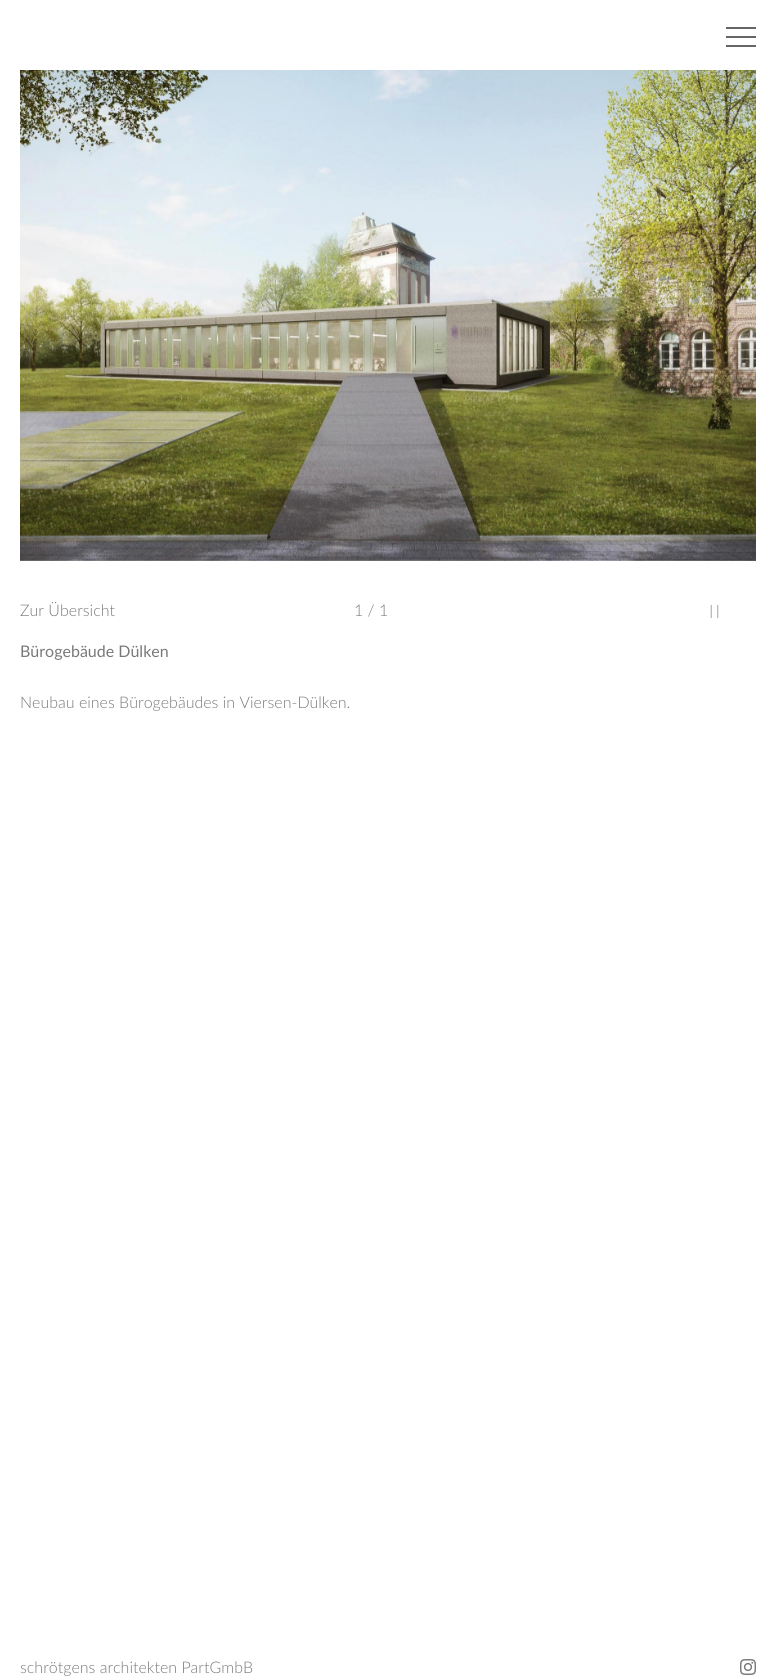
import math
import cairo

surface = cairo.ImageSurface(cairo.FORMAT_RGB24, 776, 1680)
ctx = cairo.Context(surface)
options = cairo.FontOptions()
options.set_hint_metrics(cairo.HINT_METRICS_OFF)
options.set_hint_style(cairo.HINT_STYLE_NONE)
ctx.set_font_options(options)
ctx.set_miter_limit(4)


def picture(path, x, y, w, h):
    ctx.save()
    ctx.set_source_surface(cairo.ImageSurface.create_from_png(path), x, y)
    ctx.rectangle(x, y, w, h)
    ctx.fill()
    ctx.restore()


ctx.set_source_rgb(1, 1, 1)
ctx.paint()
ctx.set_source_rgb(0.4, 0.4, 0.4)
ctx.rectangle(726, 27, 30, 2)
ctx.fill()
ctx.rectangle(726, 45, 30, 2)
ctx.fill()
ctx.rectangle(726, 36, 30, 2)
ctx.fill()
picture("img1.png", 20, 70, 736, 491)
ctx.select_font_face("Lato Light")
ctx.set_font_size(16)
ctx.set_source_rgb(0.475, 0.475, 0.475)
ctx.move_to(20, 616)
ctx.show_text("Zur Übersicht")
ctx.move_to(354, 616)
ctx.show_text("1 / 1")
picture("img2.png", 710, 605, 9, 13)
ctx.select_font_face("Lato")
ctx.move_to(20, 657)
ctx.show_text("Bürogebäude Dülken")
ctx.select_font_face("Lato Light")
ctx.move_to(20, 708)
ctx.show_text("Neubau eines Bürogebäudes in Viersen-Dülken.")
ctx.move_to(20, 1673)
ctx.show_text("schrötgens architekten PartGmbB")
picture("img3.png", 740, 1659, 16, 16)
surface.write_to_png("page.png")
